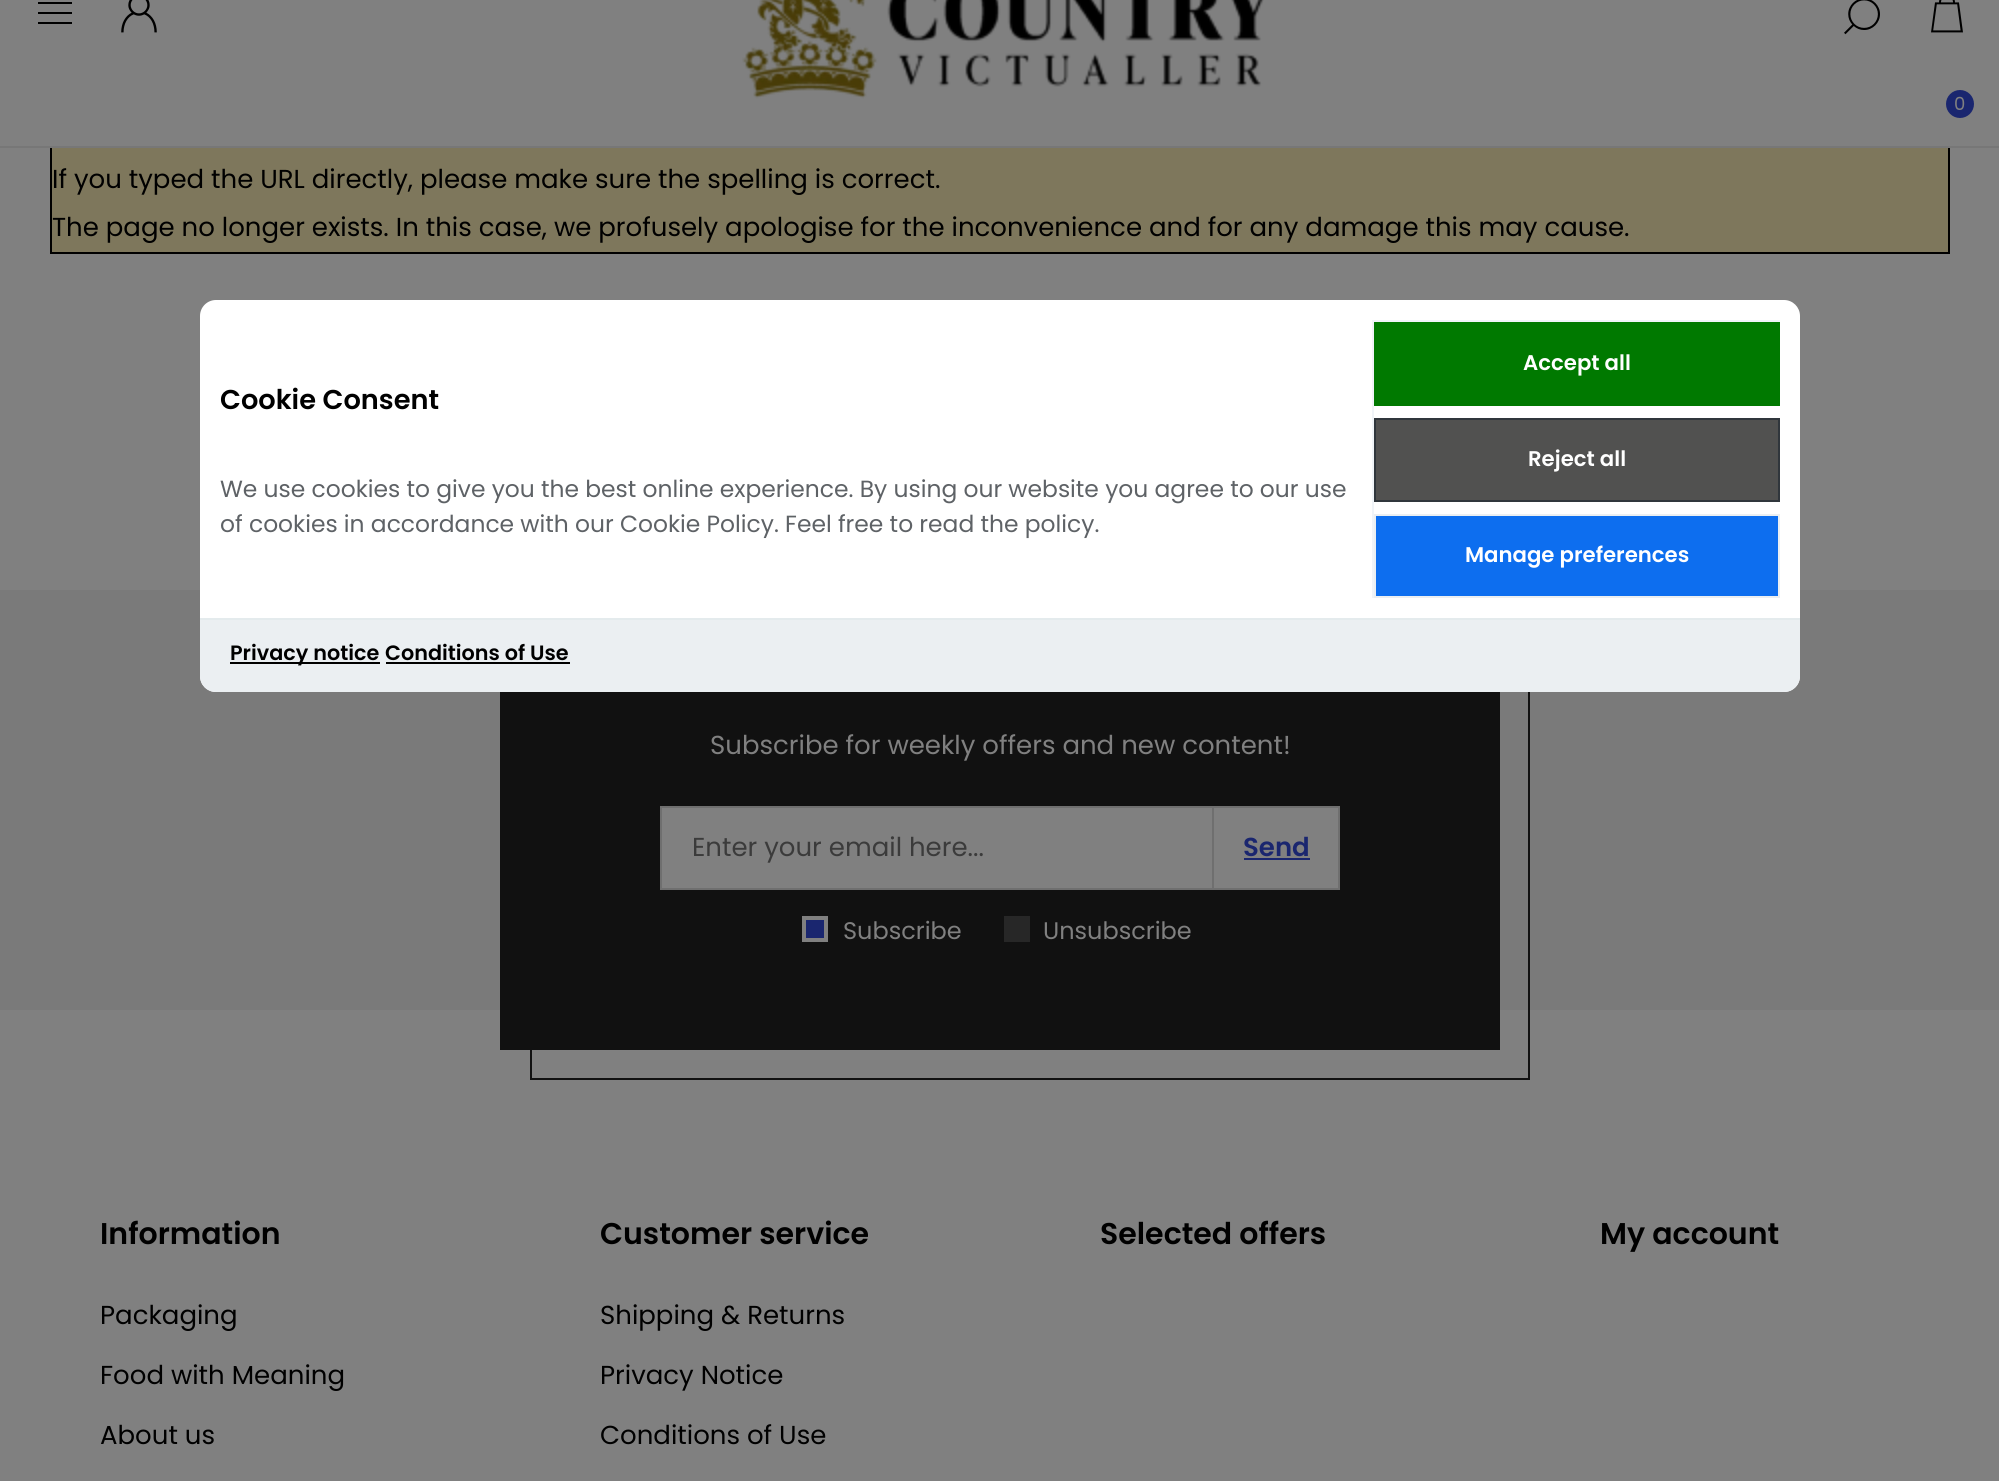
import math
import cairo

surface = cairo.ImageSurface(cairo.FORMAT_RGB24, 1999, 1481)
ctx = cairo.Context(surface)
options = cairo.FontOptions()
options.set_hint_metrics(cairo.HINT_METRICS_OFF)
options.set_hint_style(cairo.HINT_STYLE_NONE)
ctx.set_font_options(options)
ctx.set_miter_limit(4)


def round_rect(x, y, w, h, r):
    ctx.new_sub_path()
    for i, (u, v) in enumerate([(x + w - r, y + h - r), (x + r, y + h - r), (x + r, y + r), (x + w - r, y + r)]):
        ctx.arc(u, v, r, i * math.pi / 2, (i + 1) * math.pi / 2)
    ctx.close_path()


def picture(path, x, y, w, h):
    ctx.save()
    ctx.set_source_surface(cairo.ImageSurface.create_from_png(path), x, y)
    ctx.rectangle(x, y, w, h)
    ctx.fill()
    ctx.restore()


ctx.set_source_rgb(0.502, 0.502, 0.502)
ctx.paint()
ctx.set_source_rgb(0.467, 0.467, 0.467)
ctx.rectangle(0, 146, 1999, 2)
ctx.fill()
ctx.set_source_rgb(0, 0, 0)
ctx.new_path()
ctx.move_to(38, 2)
ctx.line_to(72, 2)
ctx.line_to(72, 4)
ctx.line_to(38, 4)
ctx.close_path()
ctx.move_to(38, 12)
ctx.line_to(72, 12)
ctx.line_to(72, 14)
ctx.line_to(38, 14)
ctx.close_path()
ctx.move_to(38, 22)
ctx.line_to(72, 22)
ctx.line_to(72, 24)
ctx.line_to(38, 24)
ctx.close_path()
ctx.fill()
picture("img1.png", 121, 0, 36, 33)
picture("img2.png", 742, 0, 522, 99)
picture("img3.png", 1844, 0, 36, 35)
picture("img4.png", 1931, 0, 32, 33)
ctx.set_source_rgb(0.102, 0.149, 0.435)
ctx.arc(1960, 104, 14, 0, 2 * math.pi)
ctx.fill()
ctx.select_font_face("Poppins")
ctx.set_font_size(18)
ctx.set_source_rgb(0.502, 0.502, 0.502)
ctx.move_to(1954, 110)
ctx.show_text("0")
ctx.set_source_rgb(0.494, 0.467, 0.361)
ctx.rectangle(52, 148, 1896, 104)
ctx.fill()
ctx.set_source_rgb(0, 0, 0)
ctx.rectangle(1948, 148, 2, 106)
ctx.fill()
ctx.rectangle(50, 252, 1900, 2)
ctx.fill()
ctx.rectangle(50, 148, 2, 106)
ctx.fill()
ctx.set_font_size(26)
ctx.move_to(52, 188)
ctx.show_text("If you typed the URL directly, please make sure the spelling is correct.")
ctx.move_to(52, 236)
ctx.show_text("The page no longer exists. In this case, we profusely apologise for the inconvenience and for any damage this may cause.")
ctx.set_source_rgb(0.478, 0.478, 0.478)
ctx.rectangle(0, 590, 1999, 420)
ctx.fill()
ctx.set_source_rgb(0.067, 0.067, 0.067)
ctx.rectangle(500, 692, 1000, 358)
ctx.fill()
ctx.rectangle(531, 561, 998, 518)
ctx.stroke()
ctx.set_source_rgb(0.502, 0.502, 0.502)
ctx.move_to(710, 754)
ctx.show_text("Subscribe for weekly offers and new content!")
ctx.set_source_rgb(0.435, 0.435, 0.435)
ctx.rectangle(660, 806, 680, 84)
ctx.fill()
ctx.set_source_rgb(0.502, 0.502, 0.502)
ctx.rectangle(662, 808, 550, 80)
ctx.fill()
ctx.set_source_rgb(0.231, 0.231, 0.231)
ctx.move_to(692, 856)
ctx.show_text("Enter your email here...")
ctx.set_source_rgb(0.502, 0.502, 0.502)
ctx.rectangle(1214, 808, 124, 80)
ctx.fill()
ctx.select_font_face("Poppins SemiBold")
ctx.set_source_rgb(0.102, 0.149, 0.435)
ctx.move_to(1243, 856)
ctx.show_text("Send")
ctx.rectangle(1244, 858, 66, 2)
ctx.fill()
ctx.rectangle(804, 918, 22, 22)
ctx.fill_preserve()
ctx.set_source_rgb(0.502, 0.502, 0.502)
ctx.set_line_width(4)
ctx.stroke()
ctx.select_font_face("Poppins")
ctx.set_font_size(24)
ctx.move_to(843, 939)
ctx.show_text("Subscribe")
ctx.set_source_rgb(0.153, 0.153, 0.153)
ctx.rectangle(1004, 916, 26, 26)
ctx.fill()
ctx.set_source_rgb(0.502, 0.502, 0.502)
ctx.move_to(1043, 939)
ctx.show_text("Unsubscribe")
ctx.select_font_face("Poppins SemiBold")
ctx.set_font_size(30)
ctx.set_source_rgb(0, 0, 0)
ctx.move_to(100, 1244)
ctx.show_text("Information")
ctx.select_font_face("Poppins")
ctx.set_font_size(26)
ctx.move_to(100, 1324)
ctx.show_text("Packaging")
ctx.move_to(100, 1384)
ctx.show_text("Food with Meaning")
ctx.move_to(100, 1444)
ctx.show_text("About us")
ctx.select_font_face("Poppins SemiBold")
ctx.set_font_size(30)
ctx.move_to(600, 1244)
ctx.show_text("Customer service")
ctx.select_font_face("Poppins")
ctx.set_font_size(26)
ctx.move_to(600, 1324)
ctx.show_text("Shipping & Returns")
ctx.move_to(600, 1384)
ctx.show_text("Privacy Notice")
ctx.move_to(600, 1444)
ctx.show_text("Conditions of Use")
ctx.select_font_face("Poppins SemiBold")
ctx.set_font_size(30)
ctx.move_to(1100, 1244)
ctx.show_text("Selected offers")
ctx.move_to(1600, 1244)
ctx.show_text("My account")
ctx.set_source_rgb(1, 1, 1)
round_rect(200, 300, 1600, 392, 16)
ctx.fill()
ctx.set_font_size(27.25)
ctx.set_source_rgb(0, 0, 0)
ctx.move_to(220, 409)
ctx.show_text("Cookie Consent")
ctx.select_font_face("Poppins")
ctx.set_font_size(23.4)
ctx.set_source_rgb(0.369, 0.384, 0.4)
ctx.move_to(220, 497)
ctx.show_text("We use cookies to give you the best online experience. By using our website you agree to our use")
ctx.move_to(220, 532)
ctx.show_text("of cookies in accordance with our Cookie Policy. Feel free to read the policy.")
ctx.set_source_rgb(0.941, 0.957, 0.969)
ctx.rectangle(1372, 320, 408, 2)
ctx.fill()
ctx.rectangle(1372, 320, 2, 278)
ctx.fill()
ctx.set_source_rgb(0, 0.475, 0)
ctx.rectangle(1375, 323, 404, 82)
ctx.fill_preserve()
ctx.set_line_width(2)
ctx.stroke()
ctx.select_font_face("Poppins SemiBold")
ctx.set_font_size(21.25)
ctx.set_source_rgb(1, 1, 1)
ctx.move_to(1523, 370)
ctx.show_text("Accept all")
ctx.set_source_rgb(0.318, 0.318, 0.314)
ctx.rectangle(1375, 419, 404, 82)
ctx.fill_preserve()
ctx.set_source_rgb(0.188, 0.212, 0.235)
ctx.stroke()
ctx.set_source_rgb(1, 1, 1)
ctx.move_to(1528, 466)
ctx.show_text("Reject all")
ctx.set_source_rgb(0.051, 0.431, 0.937)
ctx.rectangle(1375, 515, 404, 82)
ctx.fill_preserve()
ctx.set_source_rgb(0.918, 0.937, 0.949)
ctx.stroke()
ctx.set_source_rgb(1, 1, 1)
ctx.move_to(1465, 562)
ctx.show_text("Manage preferences")
ctx.set_source_rgb(0.918, 0.937, 0.949)
ctx.new_path()
ctx.move_to(200, 618)
ctx.line_to(1800, 618)
ctx.line_to(1800, 676)
ctx.curve_to(1800, 685, 1793, 692, 1784, 692)
ctx.line_to(216, 692)
ctx.curve_to(207, 692, 200, 685, 200, 676)
ctx.close_path()
ctx.fill()
ctx.set_source_rgb(0.894, 0.918, 0.929)
ctx.rectangle(200, 618, 1600, 2)
ctx.fill()
ctx.set_source_rgb(0, 0, 0)
ctx.rectangle(230, 662, 150, 2)
ctx.fill()
ctx.set_font_size(20.75)
ctx.move_to(230, 660)
ctx.show_text("Privacy notice")
ctx.move_to(385, 660)
ctx.show_text("Conditions of Use")
ctx.rectangle(386, 662, 184, 2)
ctx.fill()
surface.write_to_png("page.png")
